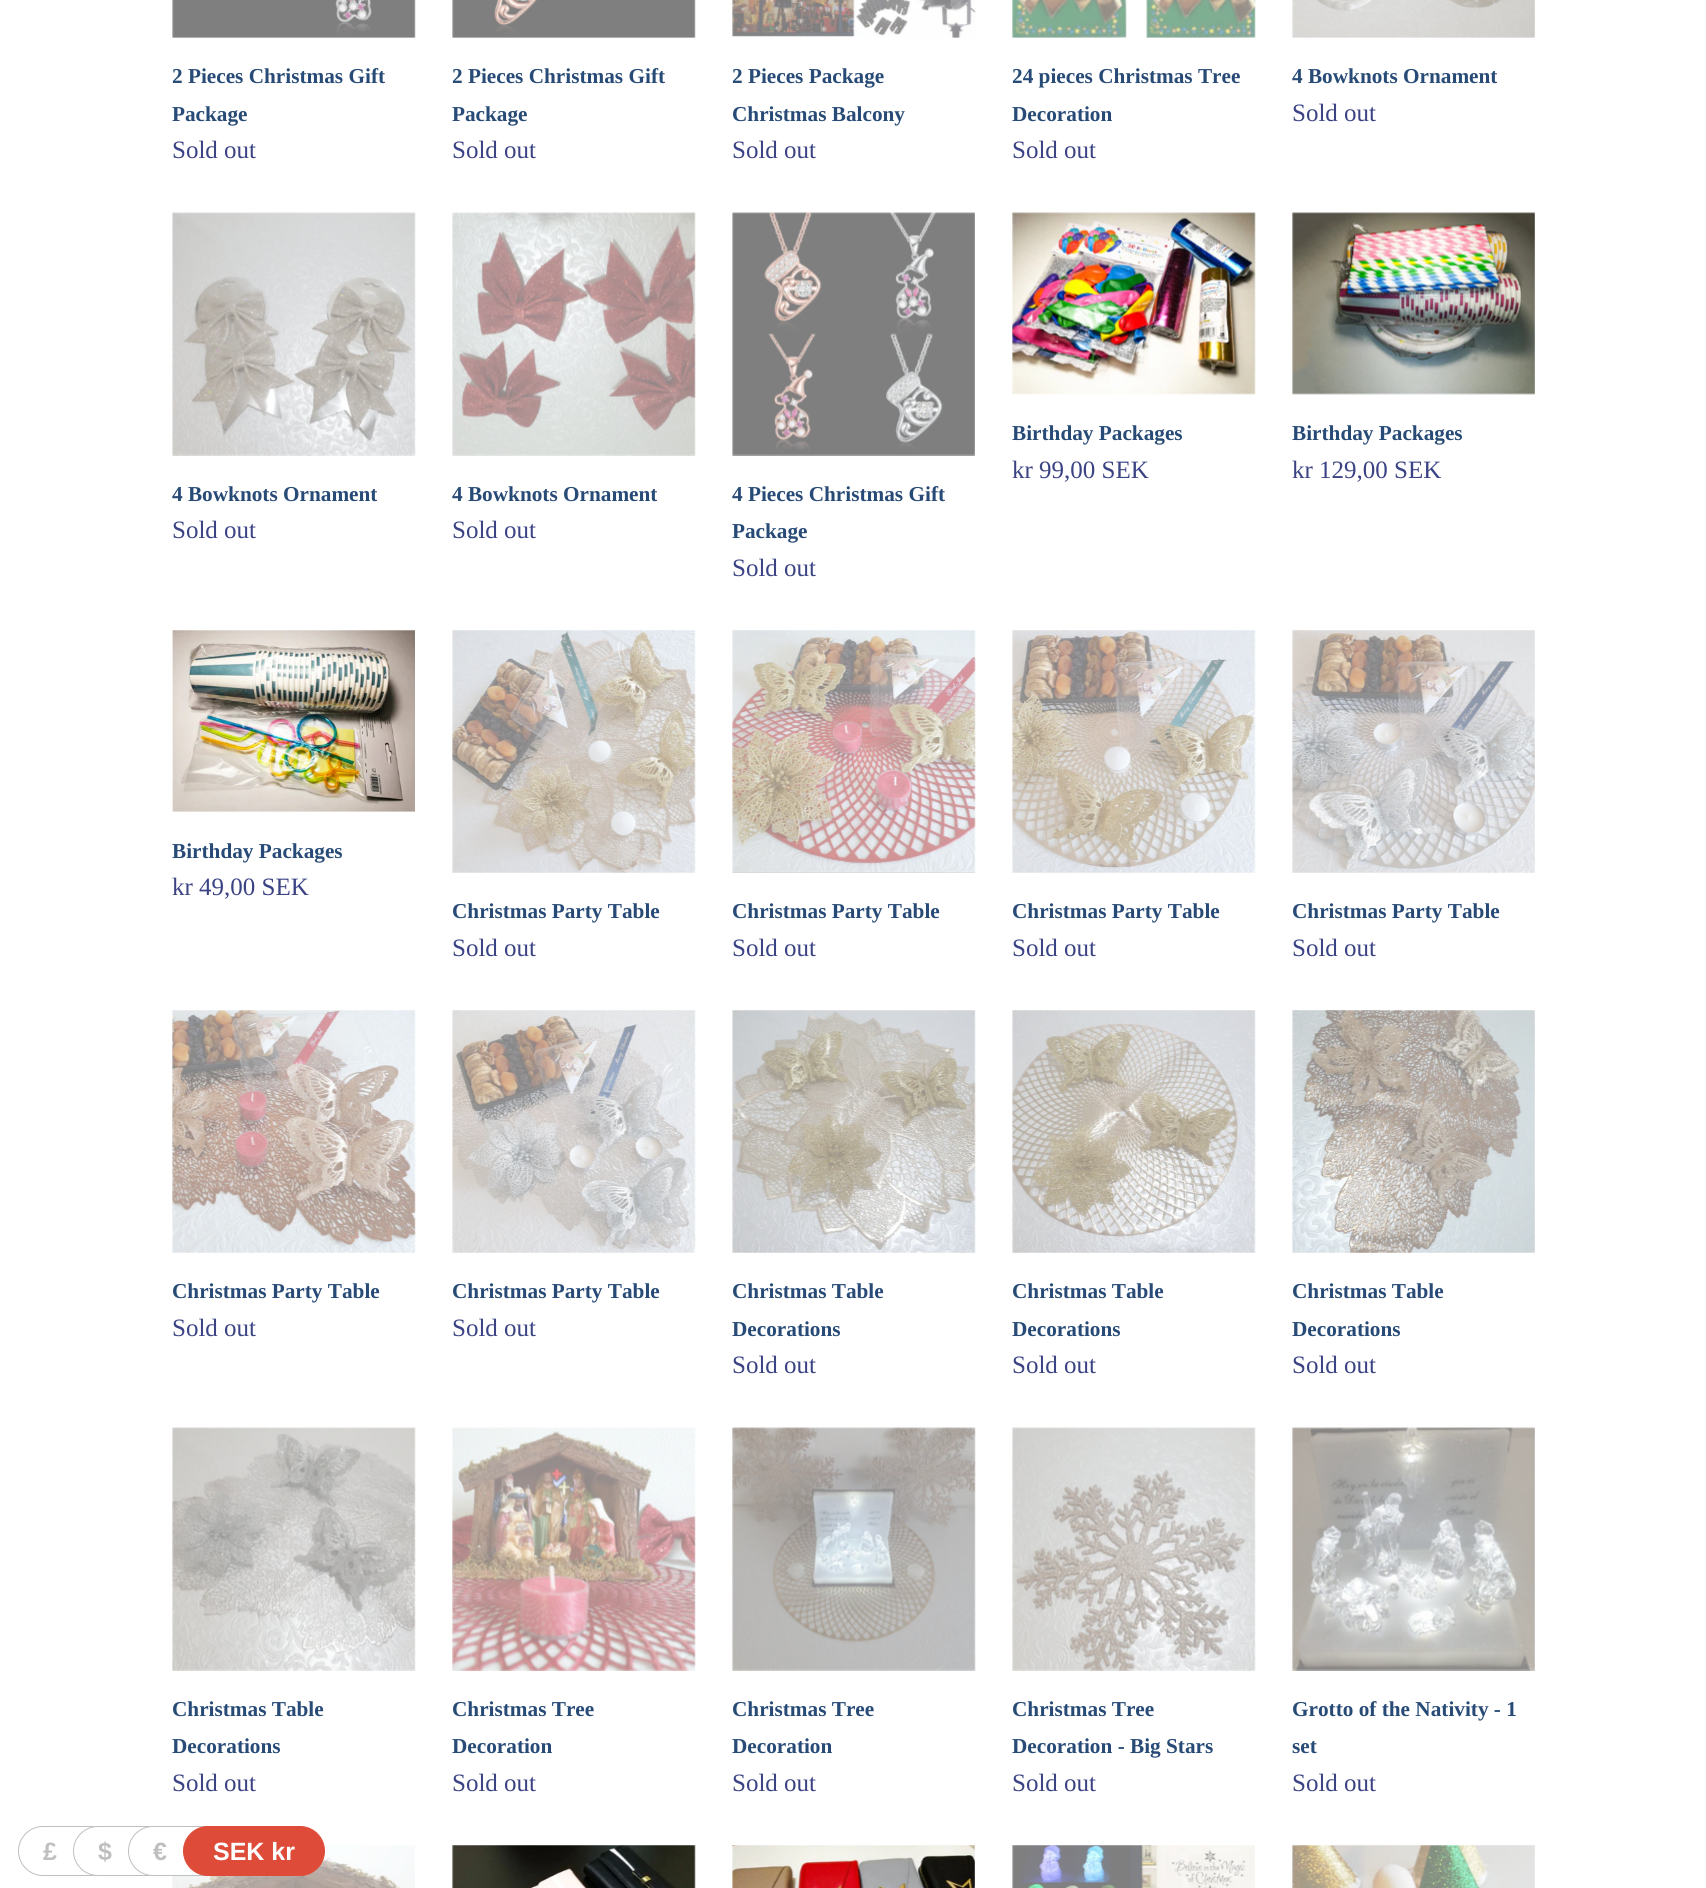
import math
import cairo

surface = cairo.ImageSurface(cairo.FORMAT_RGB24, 1706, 1888)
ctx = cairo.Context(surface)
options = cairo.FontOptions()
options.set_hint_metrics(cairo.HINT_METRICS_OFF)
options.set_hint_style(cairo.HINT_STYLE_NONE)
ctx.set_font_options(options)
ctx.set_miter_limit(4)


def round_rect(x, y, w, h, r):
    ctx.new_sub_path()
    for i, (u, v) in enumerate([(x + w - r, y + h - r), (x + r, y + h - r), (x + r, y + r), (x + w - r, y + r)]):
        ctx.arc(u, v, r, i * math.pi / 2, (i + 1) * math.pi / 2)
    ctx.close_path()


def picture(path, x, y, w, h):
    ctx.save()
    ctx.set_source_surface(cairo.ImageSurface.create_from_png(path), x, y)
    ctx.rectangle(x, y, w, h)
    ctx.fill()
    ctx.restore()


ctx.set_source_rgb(1, 1, 1)
ctx.paint()
picture("img1.png", 172, 0, 244, 38)
ctx.select_font_face("Liberation Serif", cairo.FONT_SLANT_NORMAL, cairo.FONT_WEIGHT_BOLD)
ctx.set_font_size(21.25)
ctx.set_source_rgb(0.153, 0.294, 0.463)
ctx.move_to(172, 83)
ctx.show_text("2 Pieces Christmas Gift")
ctx.move_to(172, 121)
ctx.show_text("Package")
ctx.select_font_face("Liberation Serif")
ctx.set_font_size(25)
ctx.set_source_rgb(0.231, 0.263, 0.518)
ctx.move_to(172, 158)
ctx.show_text("Sold out")
picture("img2.png", 452, 0, 244, 38)
ctx.select_font_face("Liberation Serif", cairo.FONT_SLANT_NORMAL, cairo.FONT_WEIGHT_BOLD)
ctx.set_font_size(21.25)
ctx.set_source_rgb(0.153, 0.294, 0.463)
ctx.move_to(452, 83)
ctx.show_text("2 Pieces Christmas Gift")
ctx.move_to(452, 121)
ctx.show_text("Package")
ctx.select_font_face("Liberation Serif")
ctx.set_font_size(25)
ctx.set_source_rgb(0.231, 0.263, 0.518)
ctx.move_to(452, 158)
ctx.show_text("Sold out")
picture("img3.png", 732, 0, 244, 38)
ctx.select_font_face("Liberation Serif", cairo.FONT_SLANT_NORMAL, cairo.FONT_WEIGHT_BOLD)
ctx.set_font_size(21.25)
ctx.set_source_rgb(0.153, 0.294, 0.463)
ctx.move_to(732, 83)
ctx.show_text("2 Pieces Package")
ctx.move_to(732, 121)
ctx.show_text("Christmas Balcony")
ctx.select_font_face("Liberation Serif")
ctx.set_font_size(25)
ctx.set_source_rgb(0.231, 0.263, 0.518)
ctx.move_to(732, 158)
ctx.show_text("Sold out")
picture("img4.png", 1012, 0, 244, 38)
ctx.select_font_face("Liberation Serif", cairo.FONT_SLANT_NORMAL, cairo.FONT_WEIGHT_BOLD)
ctx.set_font_size(21.25)
ctx.set_source_rgb(0.153, 0.294, 0.463)
ctx.move_to(1012, 83)
ctx.show_text("24 pieces Christmas Tree")
ctx.move_to(1012, 121)
ctx.show_text("Decoration")
ctx.select_font_face("Liberation Serif")
ctx.set_font_size(25)
ctx.set_source_rgb(0.231, 0.263, 0.518)
ctx.move_to(1012, 158)
ctx.show_text("Sold out")
picture("img5.png", 1292, 0, 243, 38)
ctx.select_font_face("Liberation Serif", cairo.FONT_SLANT_NORMAL, cairo.FONT_WEIGHT_BOLD)
ctx.set_font_size(21.25)
ctx.set_source_rgb(0.153, 0.294, 0.463)
ctx.move_to(1292, 83)
ctx.show_text("4 Bowknots Ornament")
ctx.select_font_face("Liberation Serif")
ctx.set_font_size(25)
ctx.set_source_rgb(0.231, 0.263, 0.518)
ctx.move_to(1292, 121)
ctx.show_text("Sold out")
picture("img6.png", 1012, 212, 244, 183)
ctx.select_font_face("Liberation Serif", cairo.FONT_SLANT_NORMAL, cairo.FONT_WEIGHT_BOLD)
ctx.set_font_size(21.25)
ctx.set_source_rgb(0.153, 0.294, 0.463)
ctx.move_to(1012, 440)
ctx.show_text("Birthday Packages")
ctx.select_font_face("Liberation Serif")
ctx.set_font_size(25)
ctx.set_source_rgb(0.231, 0.263, 0.518)
ctx.move_to(1012, 478)
ctx.show_text("kr 99,00 SEK")
picture("img7.png", 1292, 212, 243, 183)
ctx.select_font_face("Liberation Serif", cairo.FONT_SLANT_NORMAL, cairo.FONT_WEIGHT_BOLD)
ctx.set_font_size(21.25)
ctx.set_source_rgb(0.153, 0.294, 0.463)
ctx.move_to(1292, 440)
ctx.show_text("Birthday Packages")
ctx.select_font_face("Liberation Serif")
ctx.set_font_size(25)
ctx.set_source_rgb(0.231, 0.263, 0.518)
ctx.move_to(1292, 478)
ctx.show_text("kr 129,00 SEK")
picture("img8.png", 172, 212, 244, 244)
ctx.select_font_face("Liberation Serif", cairo.FONT_SLANT_NORMAL, cairo.FONT_WEIGHT_BOLD)
ctx.set_font_size(21.25)
ctx.set_source_rgb(0.153, 0.294, 0.463)
ctx.move_to(172, 501)
ctx.show_text("4 Bowknots Ornament")
ctx.select_font_face("Liberation Serif")
ctx.set_font_size(25)
ctx.set_source_rgb(0.231, 0.263, 0.518)
ctx.move_to(172, 538)
ctx.show_text("Sold out")
picture("img9.png", 452, 212, 244, 244)
ctx.select_font_face("Liberation Serif", cairo.FONT_SLANT_NORMAL, cairo.FONT_WEIGHT_BOLD)
ctx.set_font_size(21.25)
ctx.set_source_rgb(0.153, 0.294, 0.463)
ctx.move_to(452, 501)
ctx.show_text("4 Bowknots Ornament")
ctx.select_font_face("Liberation Serif")
ctx.set_font_size(25)
ctx.set_source_rgb(0.231, 0.263, 0.518)
ctx.move_to(452, 538)
ctx.show_text("Sold out")
picture("img10.png", 732, 212, 243, 244)
ctx.select_font_face("Liberation Serif", cairo.FONT_SLANT_NORMAL, cairo.FONT_WEIGHT_BOLD)
ctx.set_font_size(21.25)
ctx.set_source_rgb(0.153, 0.294, 0.463)
ctx.move_to(732, 501)
ctx.show_text("4 Pieces Christmas Gift")
ctx.move_to(732, 538)
ctx.show_text("Package")
ctx.select_font_face("Liberation Serif")
ctx.set_font_size(25)
ctx.set_source_rgb(0.231, 0.263, 0.518)
ctx.move_to(732, 576)
ctx.show_text("Sold out")
picture("img11.png", 172, 630, 243, 182)
ctx.select_font_face("Liberation Serif", cairo.FONT_SLANT_NORMAL, cairo.FONT_WEIGHT_BOLD)
ctx.set_font_size(21.25)
ctx.set_source_rgb(0.153, 0.294, 0.463)
ctx.move_to(172, 858)
ctx.show_text("Birthday Packages")
ctx.select_font_face("Liberation Serif")
ctx.set_font_size(25)
ctx.set_source_rgb(0.231, 0.263, 0.518)
ctx.move_to(172, 895)
ctx.show_text("kr 49,00 SEK")
picture("img12.png", 452, 630, 244, 243)
ctx.select_font_face("Liberation Serif", cairo.FONT_SLANT_NORMAL, cairo.FONT_WEIGHT_BOLD)
ctx.set_font_size(21.25)
ctx.set_source_rgb(0.153, 0.294, 0.463)
ctx.move_to(452, 918)
ctx.show_text("Christmas Party Table")
ctx.select_font_face("Liberation Serif")
ctx.set_font_size(25)
ctx.set_source_rgb(0.231, 0.263, 0.518)
ctx.move_to(452, 956)
ctx.show_text("Sold out")
picture("img13.png", 732, 630, 244, 243)
ctx.select_font_face("Liberation Serif", cairo.FONT_SLANT_NORMAL, cairo.FONT_WEIGHT_BOLD)
ctx.set_font_size(21.25)
ctx.set_source_rgb(0.153, 0.294, 0.463)
ctx.move_to(732, 918)
ctx.show_text("Christmas Party Table")
ctx.select_font_face("Liberation Serif")
ctx.set_font_size(25)
ctx.set_source_rgb(0.231, 0.263, 0.518)
ctx.move_to(732, 956)
ctx.show_text("Sold out")
picture("img14.png", 1012, 630, 244, 243)
ctx.select_font_face("Liberation Serif", cairo.FONT_SLANT_NORMAL, cairo.FONT_WEIGHT_BOLD)
ctx.set_font_size(21.25)
ctx.set_source_rgb(0.153, 0.294, 0.463)
ctx.move_to(1012, 918)
ctx.show_text("Christmas Party Table")
ctx.select_font_face("Liberation Serif")
ctx.set_font_size(25)
ctx.set_source_rgb(0.231, 0.263, 0.518)
ctx.move_to(1012, 956)
ctx.show_text("Sold out")
picture("img15.png", 1292, 630, 243, 243)
ctx.select_font_face("Liberation Serif", cairo.FONT_SLANT_NORMAL, cairo.FONT_WEIGHT_BOLD)
ctx.set_font_size(21.25)
ctx.set_source_rgb(0.153, 0.294, 0.463)
ctx.move_to(1292, 918)
ctx.show_text("Christmas Party Table")
ctx.select_font_face("Liberation Serif")
ctx.set_font_size(25)
ctx.set_source_rgb(0.231, 0.263, 0.518)
ctx.move_to(1292, 956)
ctx.show_text("Sold out")
picture("img16.png", 172, 1010, 244, 243)
ctx.select_font_face("Liberation Serif", cairo.FONT_SLANT_NORMAL, cairo.FONT_WEIGHT_BOLD)
ctx.set_font_size(21.25)
ctx.set_source_rgb(0.153, 0.294, 0.463)
ctx.move_to(172, 1298)
ctx.show_text("Christmas Party Table")
ctx.select_font_face("Liberation Serif")
ctx.set_font_size(25)
ctx.set_source_rgb(0.231, 0.263, 0.518)
ctx.move_to(172, 1336)
ctx.show_text("Sold out")
picture("img17.png", 452, 1010, 244, 243)
ctx.select_font_face("Liberation Serif", cairo.FONT_SLANT_NORMAL, cairo.FONT_WEIGHT_BOLD)
ctx.set_font_size(21.25)
ctx.set_source_rgb(0.153, 0.294, 0.463)
ctx.move_to(452, 1298)
ctx.show_text("Christmas Party Table")
ctx.select_font_face("Liberation Serif")
ctx.set_font_size(25)
ctx.set_source_rgb(0.231, 0.263, 0.518)
ctx.move_to(452, 1336)
ctx.show_text("Sold out")
picture("img18.png", 732, 1010, 244, 243)
ctx.select_font_face("Liberation Serif", cairo.FONT_SLANT_NORMAL, cairo.FONT_WEIGHT_BOLD)
ctx.set_font_size(21.25)
ctx.set_source_rgb(0.153, 0.294, 0.463)
ctx.move_to(732, 1298)
ctx.show_text("Christmas Table")
ctx.move_to(732, 1336)
ctx.show_text("Decorations")
ctx.select_font_face("Liberation Serif")
ctx.set_font_size(25)
ctx.set_source_rgb(0.231, 0.263, 0.518)
ctx.move_to(732, 1373)
ctx.show_text("Sold out")
picture("img19.png", 1012, 1010, 244, 243)
ctx.select_font_face("Liberation Serif", cairo.FONT_SLANT_NORMAL, cairo.FONT_WEIGHT_BOLD)
ctx.set_font_size(21.25)
ctx.set_source_rgb(0.153, 0.294, 0.463)
ctx.move_to(1012, 1298)
ctx.show_text("Christmas Table")
ctx.move_to(1012, 1336)
ctx.show_text("Decorations")
ctx.select_font_face("Liberation Serif")
ctx.set_font_size(25)
ctx.set_source_rgb(0.231, 0.263, 0.518)
ctx.move_to(1012, 1373)
ctx.show_text("Sold out")
picture("img20.png", 1292, 1010, 243, 243)
ctx.select_font_face("Liberation Serif", cairo.FONT_SLANT_NORMAL, cairo.FONT_WEIGHT_BOLD)
ctx.set_font_size(21.25)
ctx.set_source_rgb(0.153, 0.294, 0.463)
ctx.move_to(1292, 1298)
ctx.show_text("Christmas Table")
ctx.move_to(1292, 1336)
ctx.show_text("Decorations")
ctx.select_font_face("Liberation Serif")
ctx.set_font_size(25)
ctx.set_source_rgb(0.231, 0.263, 0.518)
ctx.move_to(1292, 1373)
ctx.show_text("Sold out")
picture("img21.png", 172, 1427, 244, 244)
ctx.select_font_face("Liberation Serif", cairo.FONT_SLANT_NORMAL, cairo.FONT_WEIGHT_BOLD)
ctx.set_font_size(21.25)
ctx.set_source_rgb(0.153, 0.294, 0.463)
ctx.move_to(172, 1716)
ctx.show_text("Christmas Table")
ctx.move_to(172, 1753)
ctx.show_text("Decorations")
ctx.select_font_face("Liberation Serif")
ctx.set_font_size(25)
ctx.set_source_rgb(0.231, 0.263, 0.518)
ctx.move_to(172, 1791)
ctx.show_text("Sold out")
picture("img22.png", 452, 1427, 244, 244)
ctx.select_font_face("Liberation Serif", cairo.FONT_SLANT_NORMAL, cairo.FONT_WEIGHT_BOLD)
ctx.set_font_size(21.25)
ctx.set_source_rgb(0.153, 0.294, 0.463)
ctx.move_to(452, 1716)
ctx.show_text("Christmas Tree")
ctx.move_to(452, 1753)
ctx.show_text("Decoration")
ctx.select_font_face("Liberation Serif")
ctx.set_font_size(25)
ctx.set_source_rgb(0.231, 0.263, 0.518)
ctx.move_to(452, 1791)
ctx.show_text("Sold out")
picture("img23.png", 732, 1427, 244, 244)
ctx.select_font_face("Liberation Serif", cairo.FONT_SLANT_NORMAL, cairo.FONT_WEIGHT_BOLD)
ctx.set_font_size(21.25)
ctx.set_source_rgb(0.153, 0.294, 0.463)
ctx.move_to(732, 1716)
ctx.show_text("Christmas Tree")
ctx.move_to(732, 1753)
ctx.show_text("Decoration")
ctx.select_font_face("Liberation Serif")
ctx.set_font_size(25)
ctx.set_source_rgb(0.231, 0.263, 0.518)
ctx.move_to(732, 1791)
ctx.show_text("Sold out")
picture("img24.png", 1012, 1427, 244, 244)
ctx.select_font_face("Liberation Serif", cairo.FONT_SLANT_NORMAL, cairo.FONT_WEIGHT_BOLD)
ctx.set_font_size(21.25)
ctx.set_source_rgb(0.153, 0.294, 0.463)
ctx.move_to(1012, 1716)
ctx.show_text("Christmas Tree")
ctx.move_to(1012, 1753)
ctx.show_text("Decoration - Big Stars")
ctx.select_font_face("Liberation Serif")
ctx.set_font_size(25)
ctx.set_source_rgb(0.231, 0.263, 0.518)
ctx.move_to(1012, 1791)
ctx.show_text("Sold out")
picture("img25.png", 1292, 1427, 243, 244)
ctx.select_font_face("Liberation Serif", cairo.FONT_SLANT_NORMAL, cairo.FONT_WEIGHT_BOLD)
ctx.set_font_size(21.25)
ctx.set_source_rgb(0.153, 0.294, 0.463)
ctx.move_to(1292, 1716)
ctx.show_text("Grotto of the Nativity - 1")
ctx.move_to(1292, 1753)
ctx.show_text("set")
ctx.select_font_face("Liberation Serif")
ctx.set_font_size(25)
ctx.set_source_rgb(0.231, 0.263, 0.518)
ctx.move_to(1292, 1791)
ctx.show_text("Sold out")
picture("img26.png", 172, 1845, 243, 43)
picture("img27.png", 452, 1845, 244, 43)
picture("img28.png", 732, 1845, 243, 43)
picture("img29.png", 1012, 1845, 243, 43)
picture("img30.png", 1292, 1845, 243, 43)
round_rect(18.5, 1826.5, 111, 49, 24.5)
ctx.set_source_rgb(0.749, 0.749, 0.749)
ctx.set_line_width(1)
ctx.stroke()
ctx.select_font_face("Liberation Sans", cairo.FONT_SLANT_NORMAL, cairo.FONT_WEIGHT_BOLD)
ctx.move_to(43, 1860)
ctx.show_text("£")
ctx.set_source_rgb(1, 1, 1)
round_rect(73.5, 1826.5, 111, 49, 24.5)
ctx.fill_preserve()
ctx.set_source_rgb(0.749, 0.749, 0.749)
ctx.stroke()
ctx.move_to(98, 1860)
ctx.show_text("$")
ctx.set_source_rgb(1, 1, 1)
round_rect(128.5, 1826.5, 111, 49, 24.5)
ctx.fill_preserve()
ctx.set_source_rgb(0.749, 0.749, 0.749)
ctx.stroke()
ctx.move_to(153, 1860)
ctx.show_text("€")
ctx.set_source_rgb(0.871, 0.298, 0.224)
round_rect(183.5, 1826.5, 141, 49, 24.5)
ctx.fill_preserve()
ctx.stroke()
ctx.set_source_rgb(1, 1, 1)
ctx.move_to(213, 1860)
ctx.show_text("SEK kr")
surface.write_to_png("page.png")
